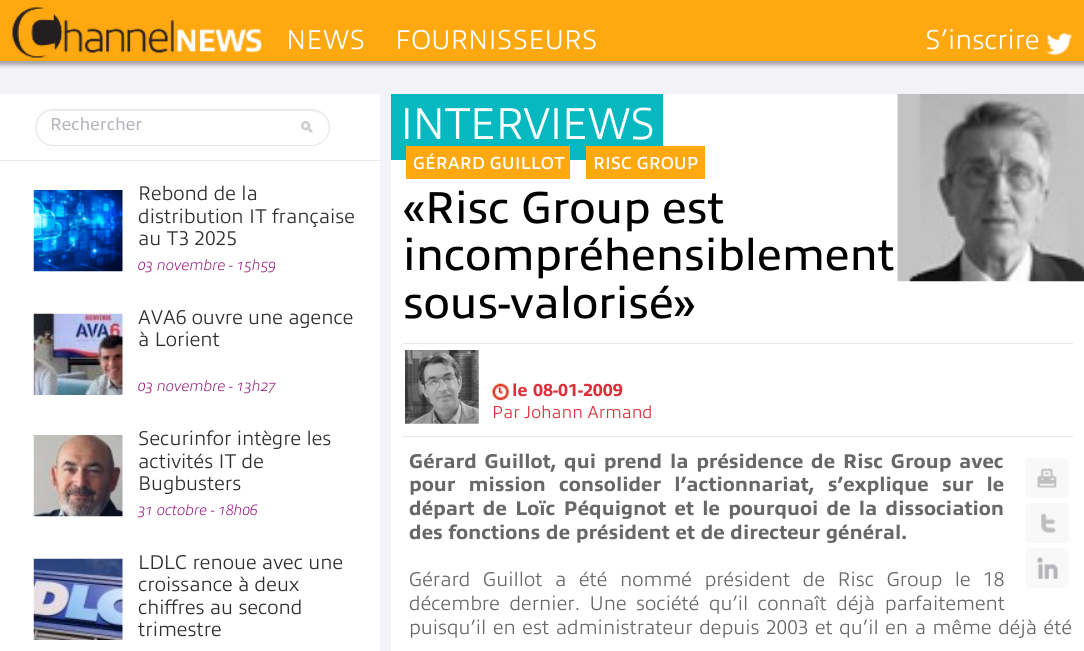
import math
import cairo

surface = cairo.ImageSurface(cairo.FORMAT_RGB24, 1084, 651)
ctx = cairo.Context(surface)
options = cairo.FontOptions()
options.set_hint_metrics(cairo.HINT_METRICS_OFF)
options.set_hint_style(cairo.HINT_STYLE_NONE)
ctx.set_font_options(options)
ctx.set_miter_limit(4)


def spaced_text(x, y, s, letter, word):
    ctx.move_to(x, y)
    for ch in s:
        ctx.show_text(ch)
        ctx.rel_move_to(letter + word * (ch == ' '), 0)


def round_rect(x, y, w, h, r):
    ctx.new_sub_path()
    for i, (u, v) in enumerate([(x + w - r, y + h - r), (x + r, y + h - r), (x + r, y + r), (x + w - r, y + r)]):
        ctx.arc(u, v, r, i * math.pi / 2, (i + 1) * math.pi / 2)
    ctx.close_path()


def shadow(x, y, w, h, r, blur, alpha):
    ctx.push_group_with_content(cairo.CONTENT_ALPHA)
    ctx.set_operator(cairo.OPERATOR_SOURCE)
    for i in range(15, -16, -2):
        e = blur * i / 6
        if min(w, h) + 2 * e > 0:
            ctx.set_source_rgba(0, 0, 0, alpha * math.erfc((i - 1) / 8.5) / 2)
            round_rect(x - e, y - e, w + 2 * e, h + 2 * e, max(0, min(r + e + blur * .6, min(w, h) / 2 + e)))
            ctx.fill()
    ctx.mask(ctx.pop_group())


def picture(path, x, y, w, h):
    ctx.save()
    ctx.set_source_surface(cairo.ImageSurface.create_from_png(path), x, y)
    ctx.rectangle(x, y, w, h)
    ctx.fill()
    ctx.restore()


ctx.set_source_rgb(0.953, 0.949, 0.965)
ctx.paint()
ctx.set_source_rgb(0.639, 0.639, 0.643)
shadow(-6, -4, 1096, 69, 0, 2, 1)
ctx.set_source_rgb(1, 0.659, 0.059)
ctx.rectangle(0, 0, 1084, 61)
ctx.fill()
picture("img1.png", 12, 7, 250, 51)
ctx.select_font_face("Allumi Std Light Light")
ctx.set_font_size(27.5)
ctx.set_source_rgb(1, 1, 1)
ctx.move_to(286, 49)
ctx.show_text("NEWS")
ctx.move_to(395, 49)
ctx.show_text("FOURNISSEURS")
ctx.move_to(925, 49)
ctx.show_text("S’inscrire")
picture("img2.png", 1046, 32, 27, 24)
ctx.rectangle(0, 94, 380, 557)
ctx.fill()
ctx.set_source_rgb(0.906, 0.906, 0.914)
ctx.rectangle(0, 160, 380, 1)
ctx.fill()
ctx.set_source_rgb(0.949, 0.949, 0.949)
ctx.new_path()
ctx.move_to(54, 111)
ctx.line_to(311, 111)
ctx.line_to(318, 113)
ctx.curve_to(327, 116, 330, 126, 328, 134)
ctx.curve_to(329, 132, 329, 130, 329, 128)
ctx.curve_to(329, 118, 321, 110, 312, 110)
ctx.line_to(54, 110)
ctx.curve_to(44, 110, 36, 118, 36, 128)
ctx.curve_to(36, 131, 37, 134, 38, 136)
ctx.curve_to(34, 126, 39, 111, 54, 111)
ctx.close_path()
ctx.fill()
round_rect(35.5, 109.5, 294, 36, 18)
ctx.set_source_rgb(0.898, 0.898, 0.898)
ctx.set_line_width(1)
ctx.stroke()
ctx.select_font_face("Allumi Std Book")
ctx.set_font_size(17.5)
ctx.set_source_rgb(0.718, 0.722, 0.745)
ctx.move_to(50, 130)
ctx.show_text("Rechercher")
picture("img3.png", 301, 121, 12, 12)
picture("img4.png", 33, 190, 90, 82)
ctx.select_font_face("Allumi Std Light Light")
ctx.set_font_size(20)
ctx.set_source_rgb(0.18, 0.184, 0.196)
ctx.move_to(138, 200)
ctx.show_text("Rebond de la")
ctx.move_to(138, 223)
ctx.show_text("distribution IT française")
ctx.move_to(138, 245)
ctx.show_text("au T3 2025")
ctx.select_font_face("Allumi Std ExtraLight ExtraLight", cairo.FONT_SLANT_ITALIC)
ctx.set_font_size(15)
ctx.set_source_rgb(0.576, 0.067, 0.494)
ctx.move_to(138, 270)
ctx.show_text("03 novembre - 15h59")
picture("img5.png", 33, 313, 90, 82)
ctx.select_font_face("Allumi Std Light Light")
ctx.set_font_size(20)
ctx.set_source_rgb(0.18, 0.184, 0.196)
ctx.move_to(138, 324)
ctx.show_text("AVA6 ouvre une agence")
ctx.move_to(138, 346)
ctx.show_text("à Lorient")
ctx.select_font_face("Allumi Std ExtraLight ExtraLight", cairo.FONT_SLANT_ITALIC)
ctx.set_font_size(15)
ctx.set_source_rgb(0.576, 0.067, 0.494)
ctx.move_to(138, 391)
ctx.show_text("03 novembre - 13h27")
picture("img6.png", 33, 435, 90, 82)
ctx.select_font_face("Allumi Std Light Light")
ctx.set_font_size(20)
ctx.set_source_rgb(0.18, 0.184, 0.196)
ctx.move_to(138, 445)
ctx.show_text("Securinfor intègre les")
ctx.move_to(138, 468)
ctx.show_text("activités IT de")
ctx.move_to(138, 490)
ctx.show_text("Bugbusters")
ctx.select_font_face("Allumi Std ExtraLight ExtraLight", cairo.FONT_SLANT_ITALIC)
ctx.set_font_size(15)
ctx.set_source_rgb(0.576, 0.067, 0.494)
ctx.move_to(138, 515)
ctx.show_text("31 octobre - 18h06")
picture("img7.png", 33, 558, 90, 82)
ctx.select_font_face("Allumi Std Light Light")
ctx.set_font_size(20)
ctx.set_source_rgb(0.18, 0.184, 0.196)
ctx.move_to(138, 569)
ctx.show_text("LDLC renoue avec une")
ctx.move_to(138, 591)
ctx.show_text("croissance à deux")
ctx.move_to(138, 614)
ctx.show_text("chiffres au second")
ctx.move_to(138, 636)
ctx.show_text("trimestre")
ctx.set_source_rgb(1, 1, 1)
ctx.rectangle(391, 94, 693, 557)
ctx.fill()
ctx.set_source_rgb(0.024, 0.725, 0.753)
ctx.rectangle(391, 94, 272, 66)
ctx.fill()
ctx.set_font_size(45)
ctx.set_source_rgb(1, 1, 1)
spaced_text(400, 139, "INTERVIEWS", -1.25, 0)
picture("img8.png", 897, 93, 187, 189)
ctx.set_source_rgb(1, 0.659, 0.059)
ctx.rectangle(406, 146, 164, 33)
ctx.fill()
ctx.select_font_face("Allumi Std Light", cairo.FONT_SLANT_NORMAL, cairo.FONT_WEIGHT_BOLD)
ctx.set_font_size(17.5)
ctx.set_source_rgb(1, 1, 1)
ctx.move_to(413, 169)
ctx.show_text("GÉRARD GUILLOT")
ctx.set_source_rgb(1, 0.659, 0.059)
ctx.rectangle(586, 146, 119, 33)
ctx.fill()
ctx.set_source_rgb(1, 1, 1)
ctx.move_to(593, 169)
ctx.show_text("RISC GROUP")
ctx.select_font_face("Allumi Std Book")
ctx.set_font_size(45)
ctx.set_source_rgb(0, 0, 0)
ctx.move_to(403, 223)
ctx.show_text("«Risc Group est")
ctx.move_to(403, 270)
ctx.show_text("incompréhensiblement")
ctx.move_to(403, 318)
ctx.show_text("sous-valorisé»")
ctx.set_source_rgb(0.906, 0.906, 0.914)
ctx.rectangle(403, 343, 670, 1)
ctx.fill()
ctx.rectangle(403, 436, 670, 1)
ctx.fill()
picture("img9.png", 405, 350, 74, 74)
picture("img10.png", 492, 383, 17, 18)
ctx.select_font_face("Allumi Std Book ExtraBold")
ctx.set_font_size(17.5)
ctx.set_source_rgb(0.871, 0.188, 0.235)
ctx.move_to(512, 396)
ctx.show_text("le")
ctx.move_to(533, 396)
ctx.show_text("08-01-2009")
ctx.select_font_face("Allumi Std Light Light")
ctx.move_to(492, 418)
ctx.show_text("Par")
ctx.move_to(524, 418)
ctx.show_text("Johann Armand")
ctx.select_font_face("Allumi Std Book ExtraBold")
ctx.set_font_size(20)
ctx.set_source_rgb(0.408, 0.408, 0.408)
spaced_text(409, 468, "Gérard Guillot, qui prend la présidence de Risc Group avec", 0, 2)
spaced_text(409, 491, "pour mission consolider l’actionnariat, s’explique sur le", 0, 7.5)
spaced_text(409, 515, "départ de Loïc Péquignot et le pourquoi de la dissociation", 0, 2.5)
ctx.move_to(409, 539)
ctx.show_text("des fonctions de président et de directeur général.")
ctx.set_source_rgb(0.969, 0.969, 0.969)
round_rect(1025, 458, 44, 40, 5)
ctx.fill()
picture("img11.png", 1037, 468, 20, 20)
round_rect(1025, 503, 44, 40, 5)
ctx.fill()
picture("img12.png", 1041, 513, 15, 20)
round_rect(1025, 548, 44, 40, 5)
ctx.fill()
picture("img13.png", 1037, 557, 21, 22)
ctx.select_font_face("Allumi Std Light Light")
ctx.set_source_rgb(0.408, 0.408, 0.408)
spaced_text(409, 586, "Gérard Guillot a été nommé président de Risc Group le 18", 0, 7.25)
spaced_text(409, 610, "décembre dernier. Une société qu’il connaît déjà parfaitement", 0, 4.25)
spaced_text(409, 634, "puisqu’il en est administrateur depuis 2003 et qu’il en a même déjà été", 0, 1.25)
surface.write_to_png("page.png")
